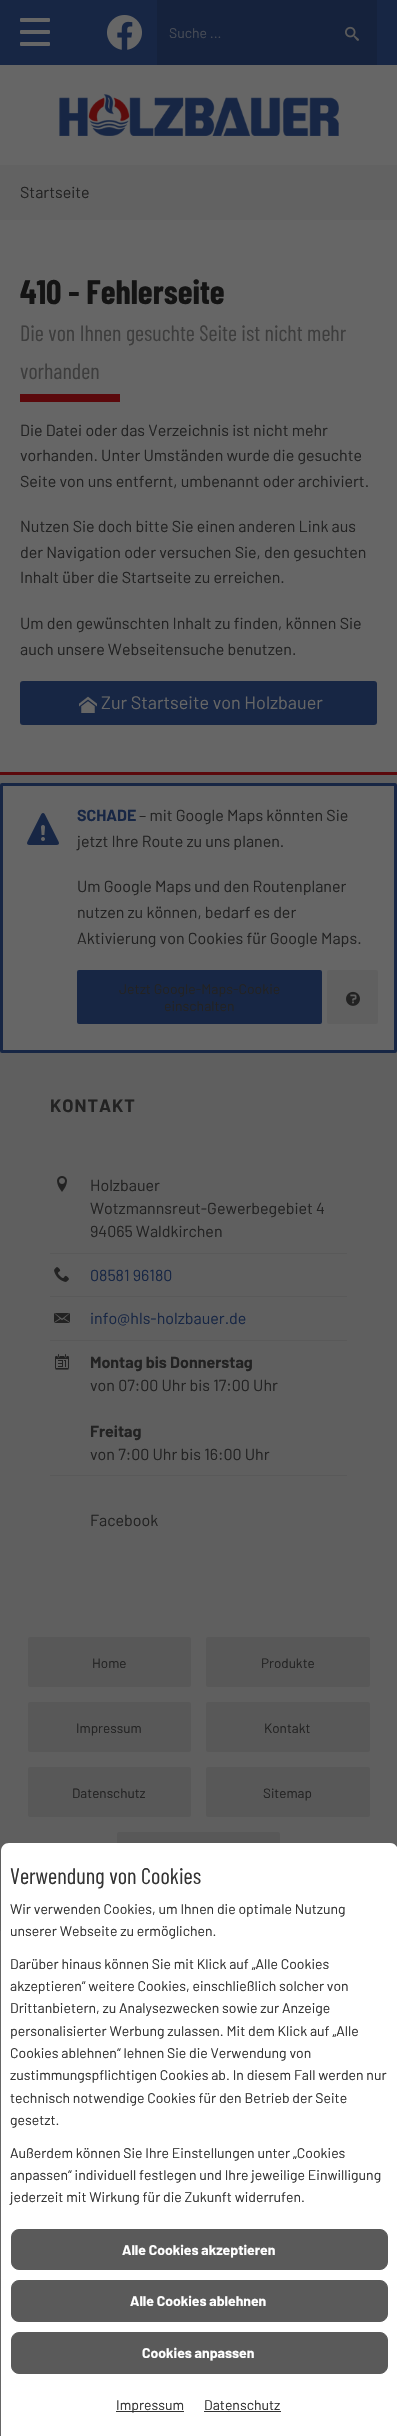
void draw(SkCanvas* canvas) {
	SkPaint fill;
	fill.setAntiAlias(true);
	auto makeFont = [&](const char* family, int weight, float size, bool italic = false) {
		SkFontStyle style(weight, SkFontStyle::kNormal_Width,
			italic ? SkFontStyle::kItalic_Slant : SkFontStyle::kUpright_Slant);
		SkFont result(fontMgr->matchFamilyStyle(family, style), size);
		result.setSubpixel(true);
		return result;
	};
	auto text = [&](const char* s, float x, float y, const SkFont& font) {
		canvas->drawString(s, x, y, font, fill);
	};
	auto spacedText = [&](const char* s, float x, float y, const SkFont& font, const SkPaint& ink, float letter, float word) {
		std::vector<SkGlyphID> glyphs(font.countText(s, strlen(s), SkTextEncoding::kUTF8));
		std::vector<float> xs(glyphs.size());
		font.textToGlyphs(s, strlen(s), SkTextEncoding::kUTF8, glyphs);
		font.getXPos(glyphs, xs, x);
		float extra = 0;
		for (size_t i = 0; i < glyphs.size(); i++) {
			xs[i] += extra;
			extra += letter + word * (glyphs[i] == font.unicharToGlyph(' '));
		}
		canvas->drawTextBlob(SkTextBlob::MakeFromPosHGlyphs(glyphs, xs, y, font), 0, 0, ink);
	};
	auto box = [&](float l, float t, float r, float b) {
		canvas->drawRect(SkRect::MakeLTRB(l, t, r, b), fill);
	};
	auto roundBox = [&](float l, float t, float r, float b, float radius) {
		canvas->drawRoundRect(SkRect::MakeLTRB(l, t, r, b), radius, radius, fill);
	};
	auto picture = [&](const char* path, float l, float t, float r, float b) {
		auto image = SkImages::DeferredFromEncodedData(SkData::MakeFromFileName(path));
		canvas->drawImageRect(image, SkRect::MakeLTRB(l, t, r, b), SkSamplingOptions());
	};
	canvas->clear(0xFF666666);
	fill.setColor(0xFF172644);
	box(0, 0, 397, 65);
	fill.setColor(0xFF666666);
	roundBox(20, 18, 50, 22, 1);
	roundBox(20, 30, 50, 34, 1);
	roundBox(20, 42, 50, 46, 1);
	picture("image0.png", 107, 15, 142, 50);
	fill.setColor(0xFF15223C);
	box(157, 0, 377, 65);
	picture("image1.png", 345, 26, 359, 41);
	picture("image2.png", 59, 94, 339, 136);
	fill.setColor(0xFF626262);
	box(0, 165, 397, 220);
	fill.setColor(0xFF5B090C);
	box(20, 394, 120, 402);
	fill.setColor(0xFF172644);
	roundBox(20, 681, 377, 725, 3);
	picture("image3.png", 79, 696, 97, 713);
	fill.setColor(0xFF5F5F5F);
	box(0, 775, 397, 1931);
	fill.setColor(0xFF5B090C);
	box(0, 772, 397, 775);
	fill.setColor(0xFF666666);
	canvas->drawRoundRect(SkRect::MakeLTRB(1.5f, 784.5f, 395.5f, 1051.5f), 0.5f, 0.5f, fill);
	fill.setStyle(SkPaint::kStroke_Style);
	fill.setStrokeWidth(3);
	fill.setColor(0xFF172644);
	canvas->drawRoundRect(SkRect::MakeLTRB(1.5f, 784.5f, 395.5f, 1051.5f), 0.5f, 0.5f, fill);
	picture("image4.png", 27, 813, 59, 845);
	fill.setStyle(SkPaint::kFill_Style);
	roundBox(77, 970, 322, 1024, 2);
	fill.setColor(0xFF606060);
	roundBox(327, 970, 378, 1024, 2);
	picture("image5.png", 346, 991, 360, 1006);
	fill.setColor(0xFF595959);
	box(50, 1253, 347, 1254);
	picture("image6.png", 57, 1176, 67, 1192);
	box(50, 1296, 347, 1297);
	picture("image7.png", 54, 1267, 69, 1282);
	box(50, 1340, 347, 1341);
	picture("image8.png", 54, 1313, 70, 1323);
	box(50, 1475, 347, 1476);
	picture("image9.png", 55, 1354, 69, 1370);
	fill.setColor(0xFF585858);
	roundBox(28, 1637, 191, 1687, 2);
	roundBox(206, 1637, 370, 1687, 2);
	roundBox(28, 1702, 191, 1752, 2);
	roundBox(206, 1702, 370, 1752, 2);
	roundBox(28, 1767, 191, 1817, 2);
	roundBox(206, 1767, 370, 1817, 2);
	roundBox(117, 1832, 280, 1882, 2);
	fill.setColor(0xFFFFFFFF);
	canvas->drawPath(SkPathBuilder().moveTo(9, 1843).lineTo(390, 1843).cubicTo(394.5f, 1843, 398, 1846.5f, 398, 1851).lineTo(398, 2436).lineTo(1, 2436).lineTo(1, 1851).cubicTo(1, 1846.5f, 4.5f, 1843, 9, 1843).close().detach(), fill);
	fill.setColor(0xFF5A5A5A);
	canvas->drawRoundRect(SkRect::MakeLTRB(11.5f, 2229.5f, 387.5f, 2269.5f), 7.5f, 7.5f, fill);
	fill.setStyle(SkPaint::kStroke_Style);
	fill.setStrokeWidth(1);
	canvas->drawRoundRect(SkRect::MakeLTRB(11.5f, 2229.5f, 387.5f, 2269.5f), 7.5f, 7.5f, fill);
	fill.setStyle(SkPaint::kFill_Style);
	canvas->drawRoundRect(SkRect::MakeLTRB(11.5f, 2280.5f, 387.5f, 2321.5f), 7.5f, 7.5f, fill);
	fill.setStyle(SkPaint::kStroke_Style);
	canvas->drawRoundRect(SkRect::MakeLTRB(11.5f, 2280.5f, 387.5f, 2321.5f), 7.5f, 7.5f, fill);
	fill.setStyle(SkPaint::kFill_Style);
	canvas->drawRoundRect(SkRect::MakeLTRB(11.5f, 2332.5f, 387.5f, 2373.5f), 7.5f, 7.5f, fill);
	fill.setStyle(SkPaint::kStroke_Style);
	canvas->drawRoundRect(SkRect::MakeLTRB(11.5f, 2332.5f, 387.5f, 2373.5f), 7.5f, 7.5f, fill);
	fill.setStyle(SkPaint::kFill_Style);
	fill.setColor(0xFF333333);
	box(116, 2411, 184, 2412);
	box(204, 2411, 281, 2412);
	auto font1 = makeFont("Barlow", 400, 14);
	fill.setColor(0xFF464B55);
	text("Suche ...", 169, 38, font1);
	auto font2 = makeFont("Barlow", 400, 16);
	fill.setColor(0xFF222222);
	text("Startseite", 20, 198, font2);
	auto font3 = makeFont("Barlow Condensed", 700, 34);
	fill.setColor(0xFF141414);
	text("410 - Fehlerseite", 20, 304, font3);
	auto font4 = makeFont("Barlow Condensed", 400, 22.1f);
	fill.setColor(0xFF3D3D3D);
	text("Die von Ihnen gesuchte Seite ist nicht mehr", 20, 341, font4);
	text("vorhanden", 20, 379, font4);
	fill.setColor(0xFF222222);
	text("Die Datei oder das Verzeichnis ist nicht mehr", 20, 436, font2);
	text("vorhanden. Unter Umständen wurde die gesuchte", 20, 461, font2);
	text("Seite von uns entfernt, umbenannt oder archiviert.", 20, 487, font2);
	text("Nutzen Sie doch bitte Sie einen anderen Link aus", 20, 532, font2);
	text("der Navigation oder versuchen Sie, den gesuchten", 20, 558, font2);
	text("Inhalt über die Startseite zu erreichen.", 20, 583, font2);
	text("Um den gewünschten Inhalt zu finden, können Sie", 20, 629, font2);
	text("auch unsere Webseitensuche benutzen.", 20, 655, font2);
	auto font5 = makeFont("Barlow", 400, 18);
	fill.setColor(0xFF666666);
	text("Zur Startseite von Holzbauer", 101, 709, font5);
	auto font6 = makeFont("Barlow", 700, 16);
	fill.setColor(0xFF172644);
	text("SCHADE", 77, 821, font6);
	fill.setColor(0xFF222222);
	text("– mit Google Maps könnten Sie", 139, 821, font2);
	text("jetzt Ihre Route zu uns planen.", 77, 847, font2);
	text("Um Google Maps und den Routenplaner", 77, 892, font2);
	text("nutzen zu können, bedarf es der", 77, 918, font2);
	text("Aktivierung von Cookies für Google Maps.", 77, 944, font2);
	text("Jetzt Google-Maps-Cookie", 119, 994, font1);
	text("einschalten", 164, 1011, font1);
	auto font7 = makeFont("Barlow", 700, 18);
	spacedText("KONTAKT", 50, 1112, font7, fill, 1, 0);
	text("Holzbauer", 90, 1191, font2);
	text("Wotzmannsreut-Gewerbegebiet 4", 90, 1214, font2);
	text("94065 Waldkirchen", 90, 1237, font2);
	fill.setColor(0xFF172644);
	text("08581 96180", 90, 1281, font2);
	text("info@hls-holzbauer.de", 90, 1324, font2);
	fill.setColor(0xFF222222);
	text("Montag bis Donnerstag", 90, 1368, font6);
	text("von 07:00 Uhr bis 17:00 Uhr", 90, 1391, font2);
	text("Freitag", 90, 1437, font6);
	text("von 7:00 Uhr bis 16:00 Uhr", 90, 1460, font2);
	text("Facebook", 90, 1526, font2);
	auto font8 = makeFont("Barlow", 400, 13.5f);
	text("Home", 92, 1668, font8);
	text("Produkte", 261, 1668, font8);
	text("Impressum", 76, 1733, font8);
	text("Kontakt", 264, 1733, font8);
	text("Datenschutz", 72, 1798, font8);
	text("Sitemap", 263, 1798, font8);
	auto font9 = makeFont("Barlow Condensed", 400, 22.5f);
	fill.setColor(0xFF333333);
	text("Verwendung von Cookies", 10, 1884, font9);
	text("Wir verwenden Cookies, um Ihnen die optimale Nutzung", 10, 1914, font1);
	text("unserer Webseite zu ermöglichen.", 10, 1936, font1);
	text("Darüber hinaus können Sie mit Klick auf „Alle Cookies", 10, 1969, font1);
	text("akzeptieren“ weitere Cookies, einschließlich solcher von", 10, 1991, font1);
	text("Drittanbietern, zu Analysezwecken sowie zur Anzeige", 10, 2013, font1);
	text("personalisierter Werbung zulassen. Mit dem Klick auf „Alle", 10, 2036, font1);
	text("Cookies ablehnen“ lehnen Sie die Verwendung von", 10, 2058, font1);
	text("zustimmungspflichtigen Cookies ab. In diesem Fall werden nur", 10, 2080, font1);
	text("technisch notwendige Cookies für den Betrieb der Seite", 10, 2103, font1);
	text("gesetzt.", 10, 2125, font1);
	text("Außerdem können Sie Ihre Einstellungen unter „Cookies", 10, 2158, font1);
	text("anpassen“ individuell festlegen und Ihre jeweilige Einwilligung", 10, 2180, font1);
	text("jederzeit mit Wirkung für die Zukunft widerrufen.", 10, 2202, font1);
	auto font10 = makeFont("Barlow", 700, 14);
	fill.setColor(0xFFFFFFFF);
	text("Alle Cookies akzeptieren", 122, 2255, font10);
	text("Alle Cookies ablehnen", 130, 2306, font10);
	text("Cookies anpassen", 142, 2358, font10);
	fill.setColor(0xFF333333);
	text("Impressum", 116, 2410, font1);
	text("Datenschutz", 204, 2410, font1);
}
